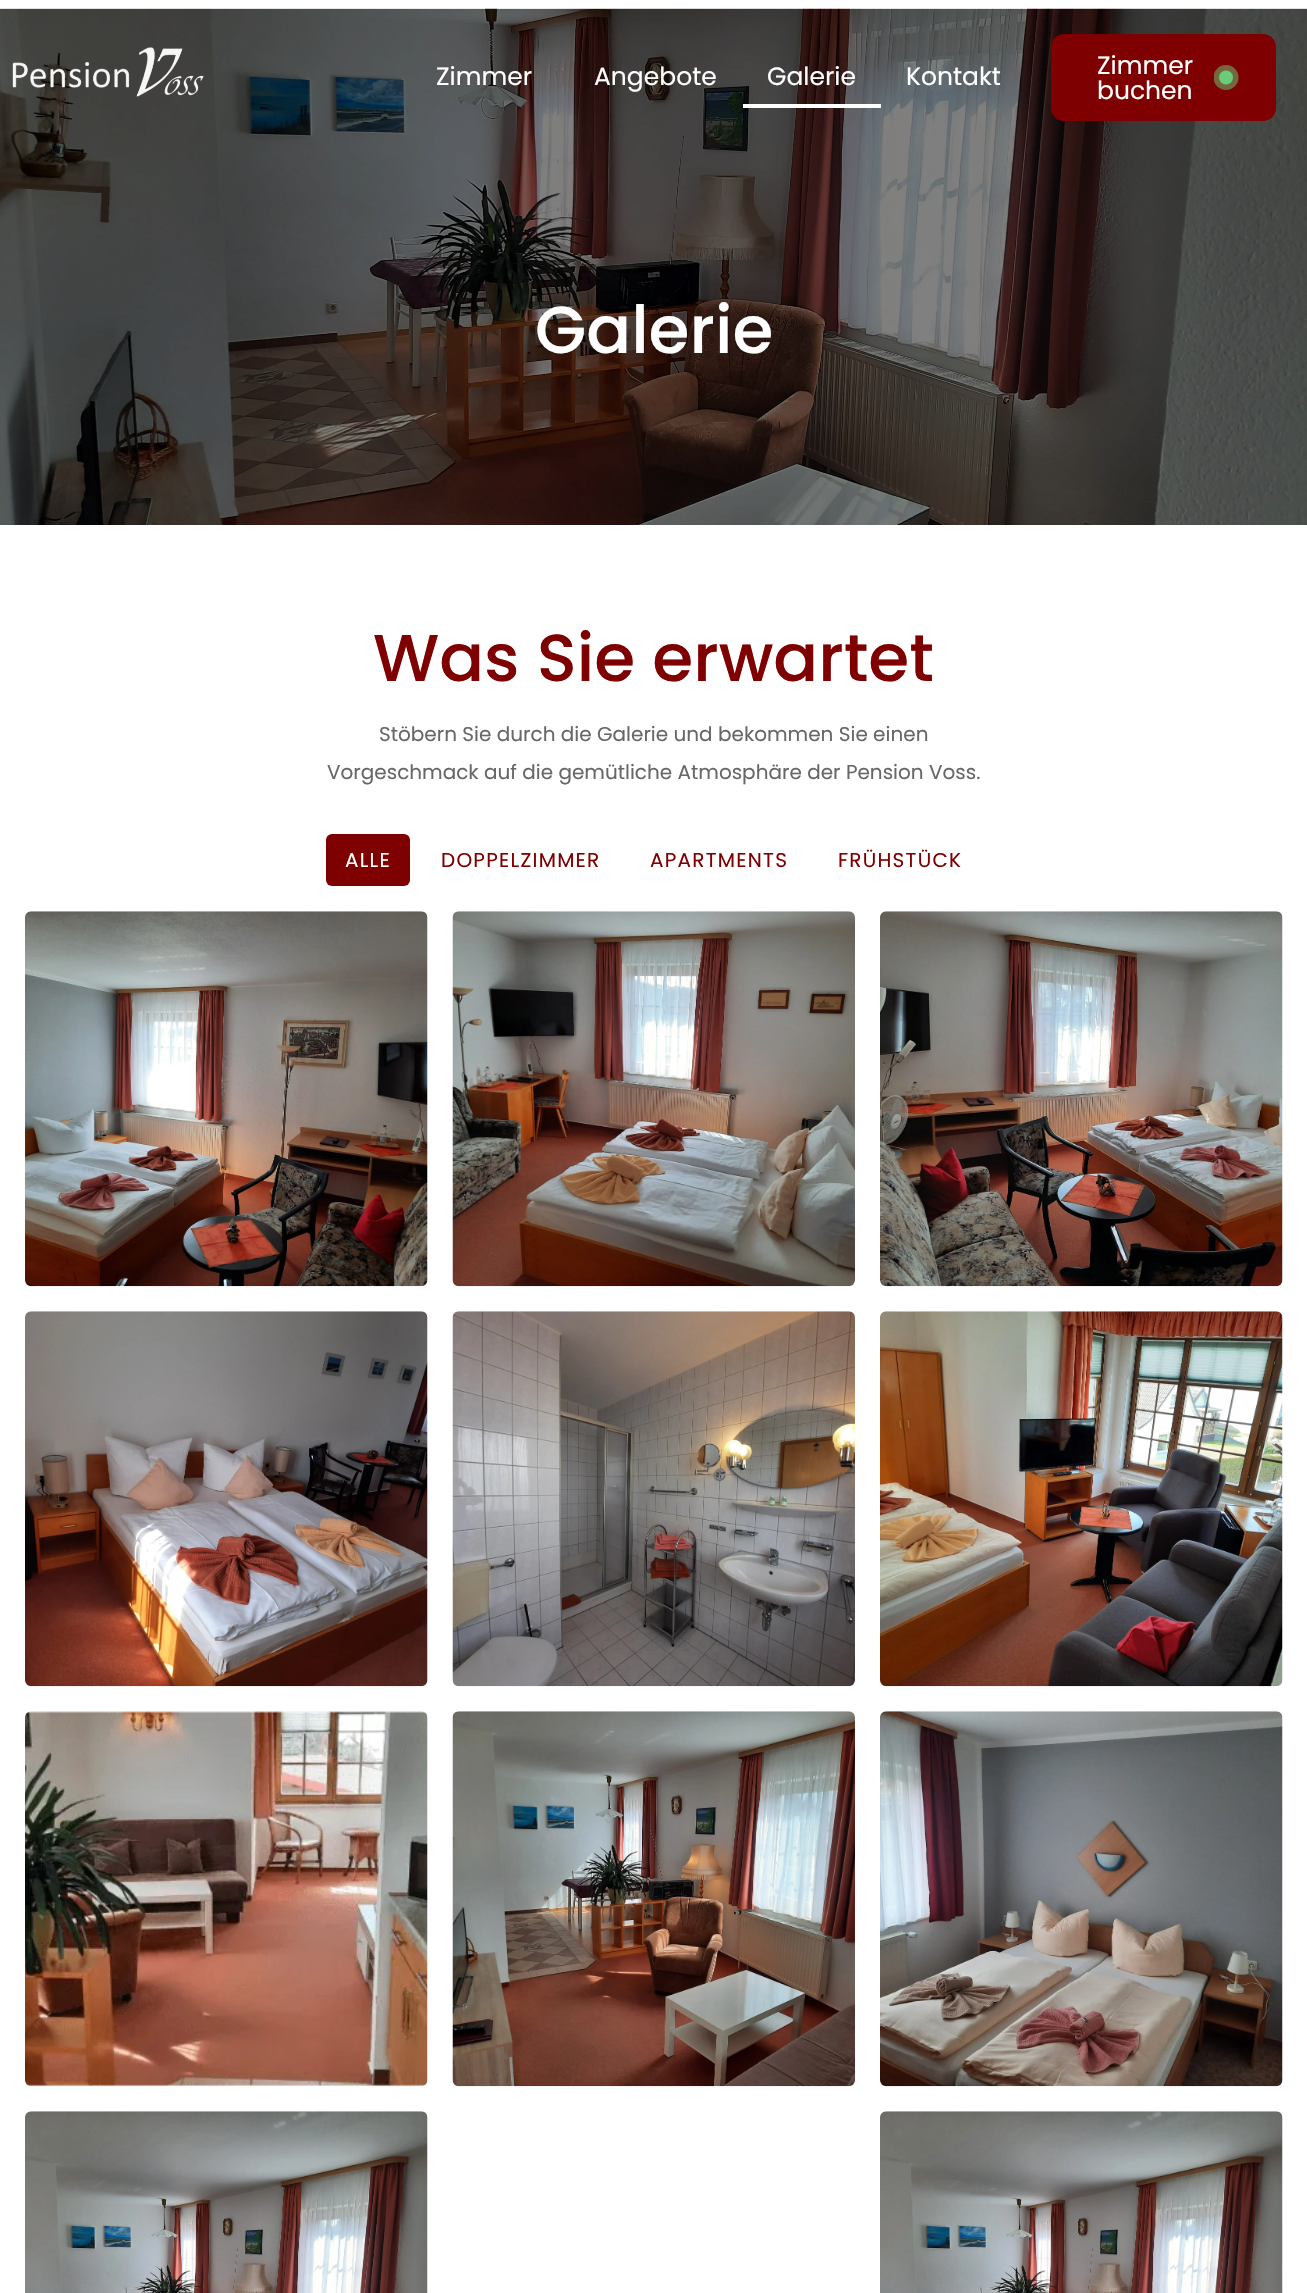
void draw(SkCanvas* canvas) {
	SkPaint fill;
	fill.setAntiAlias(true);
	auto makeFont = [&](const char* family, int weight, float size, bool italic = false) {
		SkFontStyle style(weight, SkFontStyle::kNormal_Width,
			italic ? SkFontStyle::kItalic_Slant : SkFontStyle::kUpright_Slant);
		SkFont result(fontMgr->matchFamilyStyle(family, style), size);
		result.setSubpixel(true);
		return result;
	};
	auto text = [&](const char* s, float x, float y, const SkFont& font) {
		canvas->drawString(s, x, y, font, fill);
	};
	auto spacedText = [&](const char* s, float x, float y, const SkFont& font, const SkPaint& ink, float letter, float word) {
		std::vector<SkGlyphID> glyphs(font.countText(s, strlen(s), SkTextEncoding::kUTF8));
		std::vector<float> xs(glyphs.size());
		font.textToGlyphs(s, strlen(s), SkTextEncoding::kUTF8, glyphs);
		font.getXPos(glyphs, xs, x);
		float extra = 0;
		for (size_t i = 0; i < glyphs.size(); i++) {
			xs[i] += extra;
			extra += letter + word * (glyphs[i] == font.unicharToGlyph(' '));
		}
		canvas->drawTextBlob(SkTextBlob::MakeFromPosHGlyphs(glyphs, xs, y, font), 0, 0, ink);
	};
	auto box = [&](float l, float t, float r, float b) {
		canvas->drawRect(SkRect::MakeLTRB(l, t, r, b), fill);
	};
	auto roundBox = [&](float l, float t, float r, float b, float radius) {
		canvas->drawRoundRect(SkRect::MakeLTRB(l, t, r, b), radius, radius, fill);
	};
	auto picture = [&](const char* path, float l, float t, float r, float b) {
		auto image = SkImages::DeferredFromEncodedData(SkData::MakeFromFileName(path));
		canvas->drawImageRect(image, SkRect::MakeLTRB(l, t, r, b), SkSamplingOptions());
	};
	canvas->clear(0xFFFFFFFF);
	picture("image1.png", 0, 8, 1307, 525);
	picture("image0.png", 12, 47, 204, 97);
	fill.setColor(0xFFFFFFFF);
	box(743, 104, 881, 108);
	fill.setColor(0xFF7F0000);
	roundBox(1051, 34, 1276, 121, 13);
	canvas->save();
	canvas->clipRect(SkRect::MakeLTRB(1214, 65, 1239, 90));
	fill.setColor(0xFF793D25);
	canvas->drawCircle(1226, 77.5f, 12.5f, fill);
	fill.setColor(0x4D6ACB7A);
	canvas->drawCircle(1226, 77.5f, 12.5f, fill);
	canvas->restore();
	fill.setColor(0xFF6ACB7A);
	canvas->drawCircle(1226, 77.5f, 7, fill);
	fill.setColor(0xFF7F0000);
	roundBox(326, 834, 410, 886, 6);
	picture("image2.png", 25, 911, 428, 1287);
	picture("image3.png", 452, 911, 855, 1287);
	picture("image4.png", 880, 911, 1283, 1287);
	picture("image5.png", 25, 1311, 428, 1687);
	picture("image6.png", 452, 1311, 855, 1687);
	picture("image7.png", 880, 1311, 1283, 1687);
	picture("image8.png", 25, 1711, 428, 2087);
	picture("image9.png", 452, 1711, 855, 2087);
	picture("image10.png", 880, 1711, 1283, 2087);
	picture("image11.png", 25, 2111, 428, 2293);
	picture("image12.png", 880, 2111, 1283, 2293);
	auto font1 = makeFont("Poppins", 400, 25);
	fill.setColor(0xFFFFFFFF);
	text("Zimmer", 436, 85, font1);
	text("Angebote", 594, 85, font1);
	text("Galerie", 767, 85, font1);
	text("Kontakt", 906, 85, font1);
	text("Zimmer", 1097, 74, font1);
	text("buchen", 1097, 99, font1);
	auto font2 = makeFont("Poppins", 500, 66.25f);
	text("Galerie", 535, 353, font2);
	fill.setColor(0xFF7F0000);
	text("Was Sie erwartet", 373, 681, font2);
	auto font3 = makeFont("Poppins", 400, 20);
	fill.setColor(0xFF676767);
	text("Stöbern Sie durch die Galerie und bekommen Sie einen", 379, 741, font3);
	text("Vorgeschmack auf die gemütliche Atmosphäre der Pension Voss.", 327, 779, font3);
	fill.setColor(0xFFFFFFFF);
	spacedText("ALLE", 345, 867, font3, fill, 1.25f, 0);
	fill.setColor(0xFF7F0000);
	spacedText("DOPPELZIMMER", 441, 867, font3, fill, 1.25f, 0);
	spacedText("APARTMENTS", 650, 867, font3, fill, 1.25f, 0);
	spacedText("FRÜHSTÜCK", 838, 867, font3, fill, 1.25f, 0);
}
